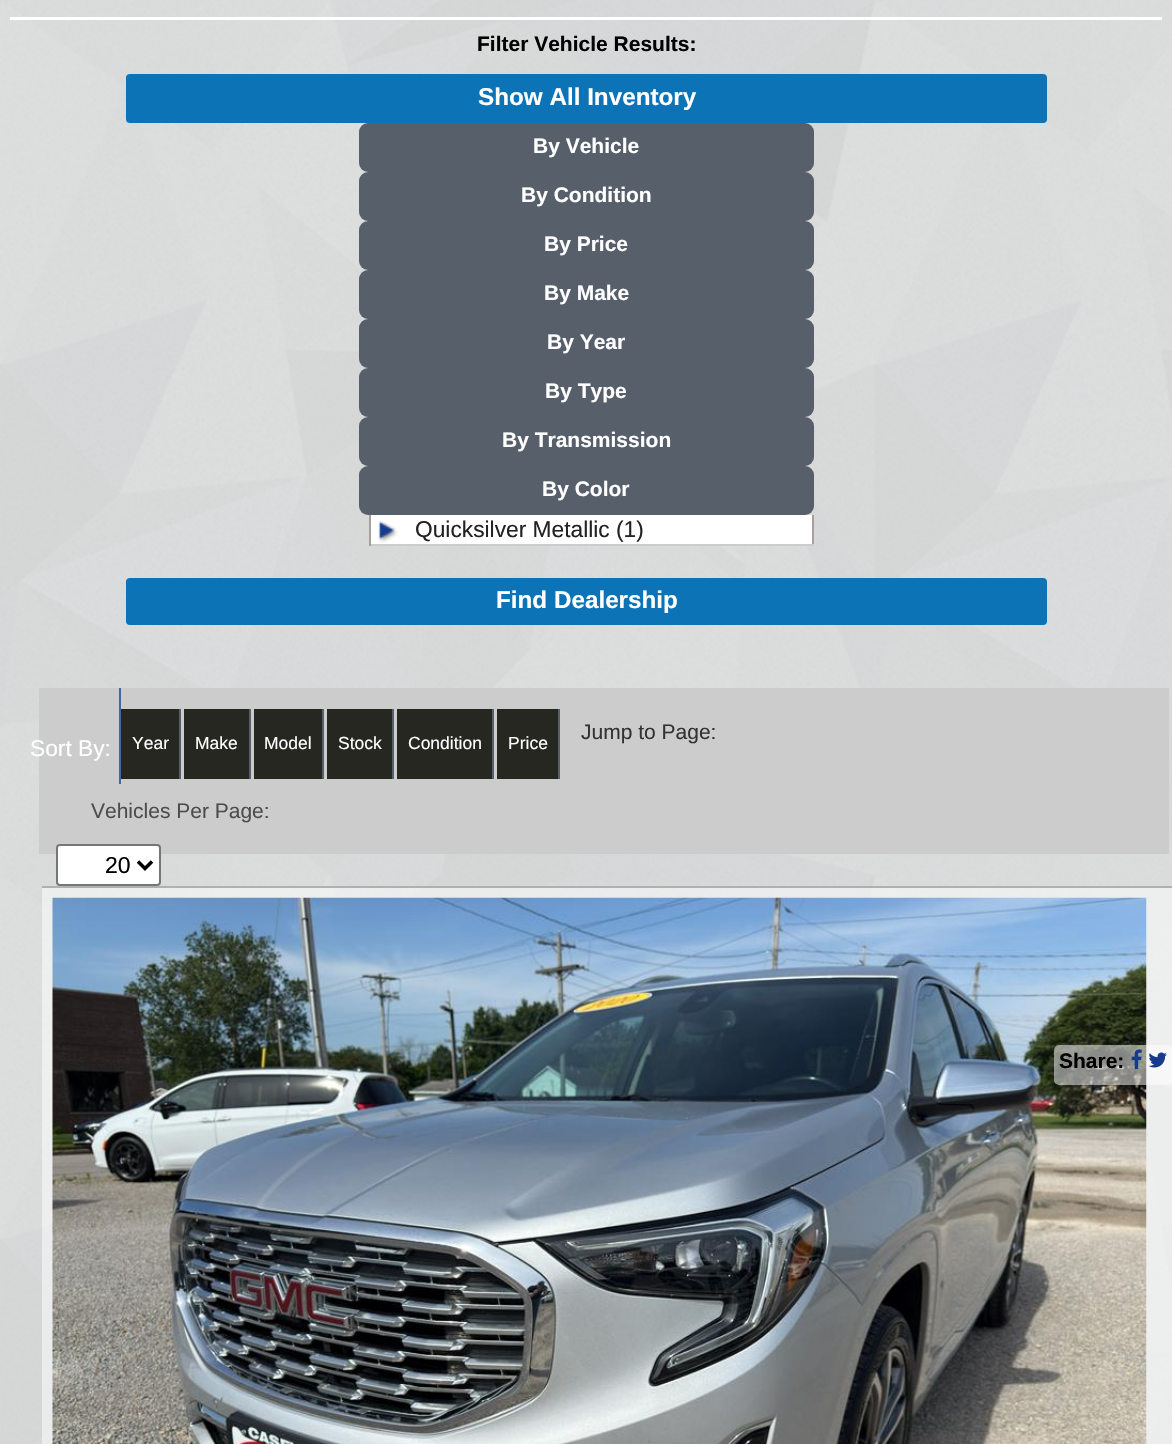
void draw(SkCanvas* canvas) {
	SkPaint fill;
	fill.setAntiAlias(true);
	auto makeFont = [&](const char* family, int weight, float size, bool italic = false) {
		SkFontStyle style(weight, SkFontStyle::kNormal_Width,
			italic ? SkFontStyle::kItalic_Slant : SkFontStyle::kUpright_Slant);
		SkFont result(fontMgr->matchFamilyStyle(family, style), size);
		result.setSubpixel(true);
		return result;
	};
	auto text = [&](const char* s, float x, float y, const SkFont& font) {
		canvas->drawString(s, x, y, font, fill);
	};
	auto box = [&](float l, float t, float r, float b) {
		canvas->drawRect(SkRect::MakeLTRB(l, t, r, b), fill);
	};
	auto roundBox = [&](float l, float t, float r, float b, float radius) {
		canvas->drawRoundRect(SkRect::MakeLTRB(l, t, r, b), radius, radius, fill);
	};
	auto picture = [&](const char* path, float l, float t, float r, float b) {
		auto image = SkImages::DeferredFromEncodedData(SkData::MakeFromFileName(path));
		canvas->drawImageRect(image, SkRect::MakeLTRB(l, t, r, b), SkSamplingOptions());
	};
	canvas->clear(0xFFFFFFFF);
	picture("image0.png", 0, 0, 1172, 1444);
	fill.setColor(0xFFFFFFFF);
	box(10, 17, 1162, 20);
	fill.setColor(0xFF0C73B6);
	roundBox(126, 74, 1047, 123, 4);
	fill.setColor(0xFF575F6B);
	roundBox(359, 123, 814, 172, 9);
	roundBox(359, 172, 814, 221, 9);
	roundBox(359, 221, 814, 270, 9);
	roundBox(359, 270, 814, 319, 9);
	roundBox(359, 319, 814, 368, 9);
	roundBox(359, 368, 814, 417, 9);
	roundBox(359, 417, 814, 466, 9);
	roundBox(359, 466, 814, 515, 9);
	fill.setColor(0xFFFFFFFF);
	box(371, 515, 812, 544);
	picture("image1.png", 378, 521, 398, 543);
	fill.setColor(0xFFA99E9E);
	box(812, 515, 814, 546);
	fill.setColor(0xFFCCCCCC);
	box(369, 544, 814, 546);
	fill.setColor(0xFFA99E9E);
	box(369, 515, 371, 546);
	fill.setColor(0xFF0C73B6);
	roundBox(126, 578, 1047, 625, 4);
	fill.setColor(0xFFCCCCCC);
	box(39, 688, 1169, 854);
	fill.setColor(0xFFFFFFFF);
	canvas->drawRoundRect(SkRect::MakeLTRB(57, 845, 160, 885), 3, 3, fill);
	fill.setStyle(SkPaint::kStroke_Style);
	fill.setStrokeWidth(2);
	fill.setColor(0xFF767676);
	canvas->drawRoundRect(SkRect::MakeLTRB(57, 845, 160, 885), 3, 3, fill);
	fill.setStrokeWidth(3.5f);
	fill.setColor(0xFF000000);
	canvas->drawPath(SkPathBuilder().moveTo(138, 861.5f).lineTo(145, 868.5f).lineTo(152, 861.5f).detach(), fill);
	fill.setStyle(SkPaint::kFill_Style);
	fill.setColor(0xFF4765A5);
	box(119, 688, 121, 784);
	fill.setColor(0xFF262721);
	box(121, 709, 179, 779);
	fill.setColor(0xFF575F6B);
	box(179, 709, 181, 779);
	fill.setColor(0xFF262721);
	box(184, 709, 249, 779);
	fill.setColor(0xFF575F6B);
	box(249, 709, 251, 779);
	fill.setColor(0xFF262721);
	box(254, 709, 322, 779);
	fill.setColor(0xFF575F6B);
	box(322, 709, 324, 779);
	fill.setColor(0xFF262721);
	box(327, 709, 392, 779);
	fill.setColor(0xFF575F6B);
	box(392, 709, 394, 779);
	fill.setColor(0xFF262721);
	box(397, 709, 492, 779);
	fill.setColor(0xFF575F6B);
	box(492, 709, 494, 779);
	fill.setColor(0xFF262721);
	box(497, 709, 558, 779);
	fill.setColor(0xFF575F6B);
	box(558, 709, 560, 779);
	fill.setColor(0x80FFFFFF);
	box(42, 888, 1172, 1444);
	fill.setColor(0xFFB0B0B0);
	box(42, 886, 1172, 888);
	picture("image2.png", 52, 897, 1147, 1444);
	fill.setColor(0x80FFFFFF);
	roundBox(1054, 1045, 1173, 1085, 5);
	picture("image3.png", 1131, 1049, 1142, 1069);
	picture("image4.png", 1148, 1052, 1167, 1068);
	auto font1 = makeFont("Liberation Sans", 700, 21);
	fill.setColor(0xFF000000);
	text("Filter Vehicle Results:", 477, 51, font1);
	auto font2 = makeFont("Liberation Sans", 700, 24.25f);
	fill.setColor(0xFFFFFFFF);
	text("Show All Inventory", 478, 105, font2);
	text("By Vehicle", 533, 153, font1);
	text("By Condition", 521, 202, font1);
	text("By Price", 544, 251, font1);
	text("By Make", 544, 300, font1);
	text("By Year", 547, 349, font1);
	text("By Type", 545, 398, font1);
	text("By Transmission", 502, 447, font1);
	text("By Color", 542, 496, font1);
	auto font3 = makeFont("Liberation Sans", 400, 22.75f);
	fill.setColor(0xFF222222);
	text("Quicksilver Metallic (1)", 415, 537, font3);
	fill.setColor(0xFFFFFFFF);
	text("Find Dealership", 496, 608, font2);
	auto font4 = makeFont("Liberation Sans", 400, 21);
	fill.setColor(0xFF333333);
	text("Jump to Page:", 581, 739, font4);
	fill.setColor(0xFF4D4D4D);
	text("Vehicles Per Page:", 91, 818, font4);
	auto font5 = makeFont("Liberation Sans", 400, 23);
	fill.setColor(0xFF000000);
	text("20", 105, 873, font5);
	fill.setColor(0xFFFFFFFF);
	text("Sort By:", 30, 756, font3);
	auto font6 = makeFont("Liberation Sans", 400, 17.5f);
	text("Year", 132, 749, font6);
	text("Make", 195, 749, font6);
	text("Model", 264, 749, font6);
	text("Stock", 338, 749, font6);
	text("Condition", 408, 749, font6);
	text("Price", 508, 749, font6);
	fill.setColor(0xFF000000);
	text("Share:", 1059, 1068, font1);
}
